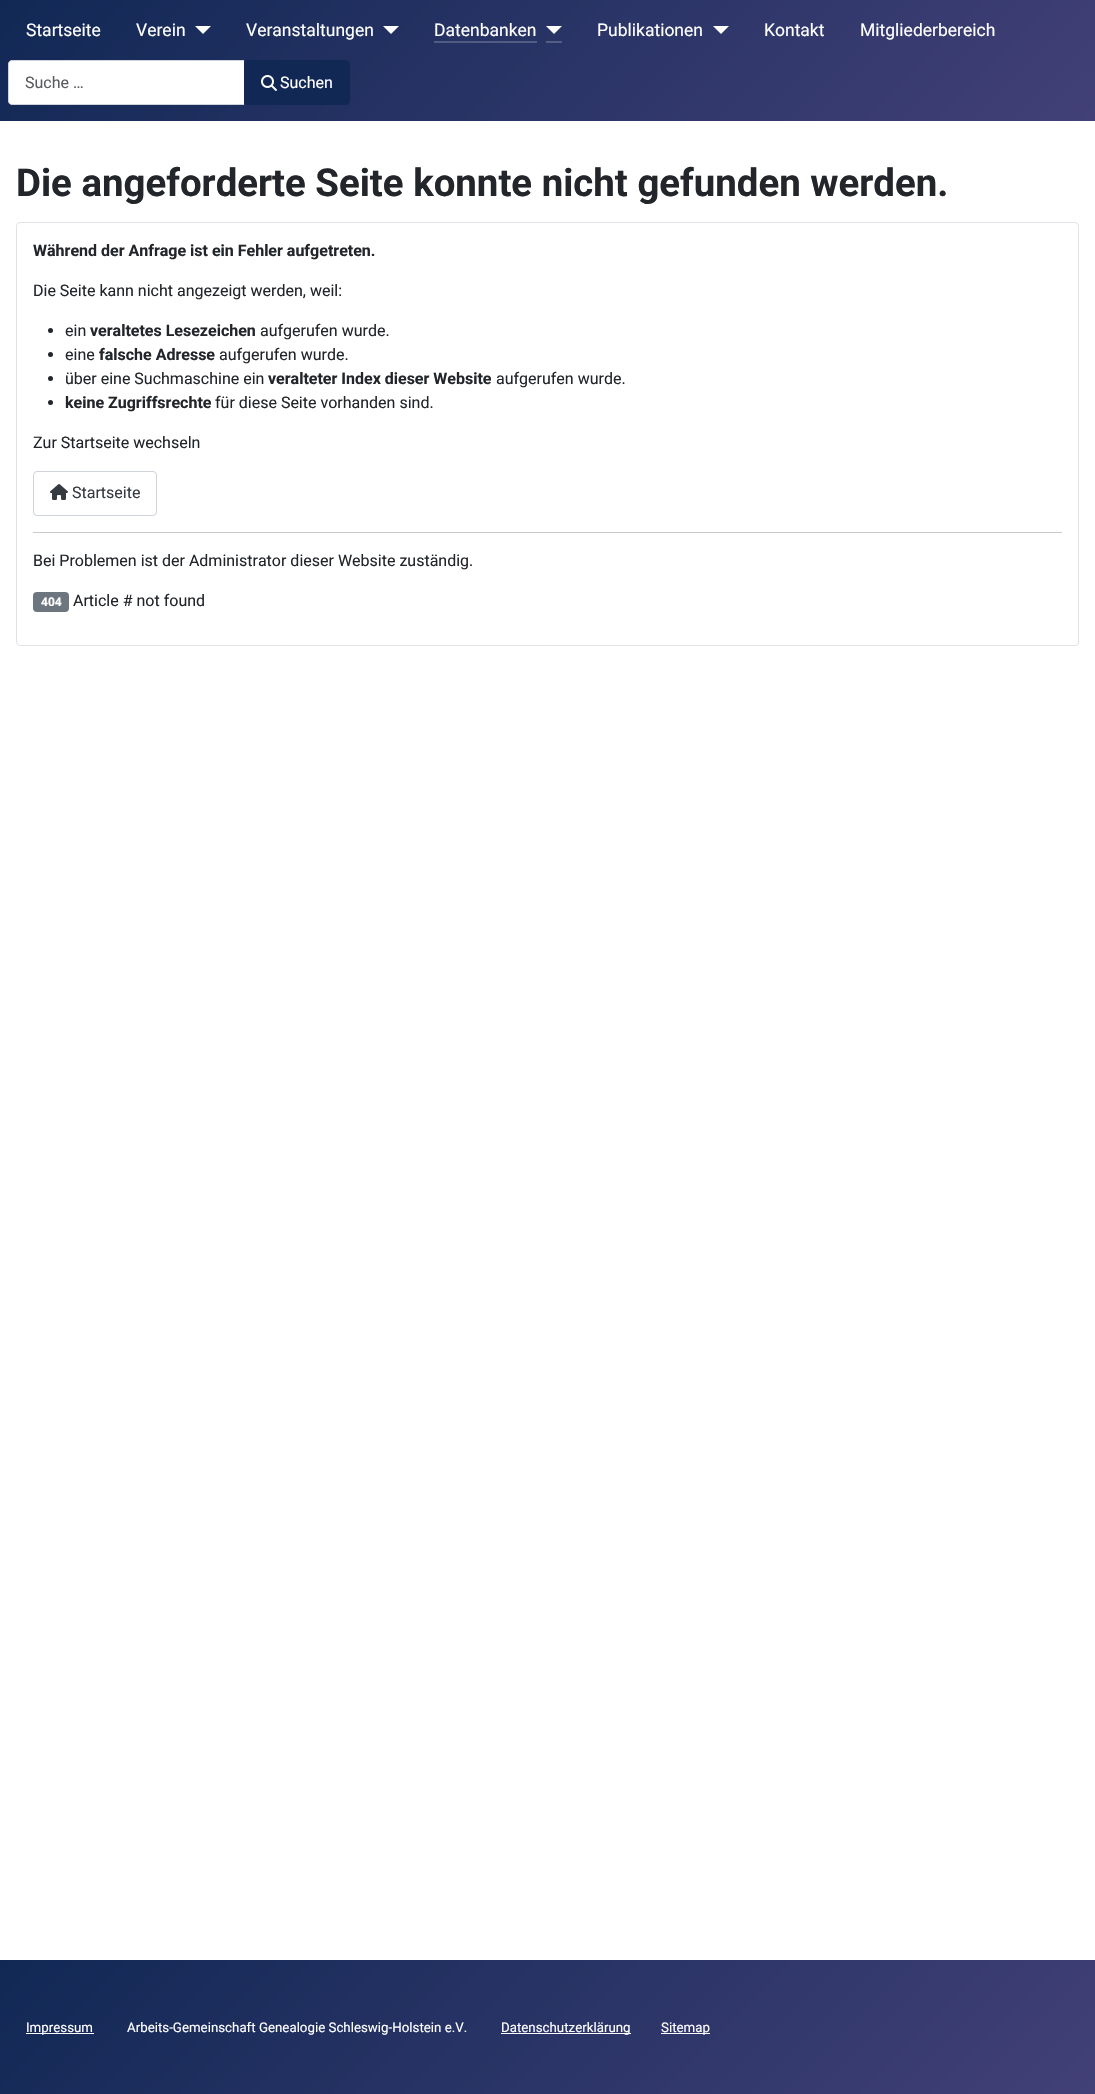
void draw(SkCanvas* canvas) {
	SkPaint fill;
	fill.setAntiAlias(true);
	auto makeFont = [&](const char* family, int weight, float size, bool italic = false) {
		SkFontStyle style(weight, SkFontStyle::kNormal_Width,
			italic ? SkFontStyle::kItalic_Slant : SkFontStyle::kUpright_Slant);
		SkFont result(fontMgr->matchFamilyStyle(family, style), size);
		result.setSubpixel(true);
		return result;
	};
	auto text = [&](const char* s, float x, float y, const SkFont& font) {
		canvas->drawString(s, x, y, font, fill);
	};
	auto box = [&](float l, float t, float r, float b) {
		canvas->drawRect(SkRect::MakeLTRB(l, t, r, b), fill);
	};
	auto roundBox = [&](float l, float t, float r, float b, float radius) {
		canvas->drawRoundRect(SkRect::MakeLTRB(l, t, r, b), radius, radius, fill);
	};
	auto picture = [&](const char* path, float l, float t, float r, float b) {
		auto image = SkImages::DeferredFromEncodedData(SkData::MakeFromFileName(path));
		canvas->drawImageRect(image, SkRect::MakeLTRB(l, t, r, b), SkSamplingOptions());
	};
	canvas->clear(0xFFFFFFFF);
	{
		const SkColor colors[] = {0xFF112855, 0xFF424077};
		const float stops[] = {0, 1};
		const SkPoint ends[] = {{244, -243}, {852, 365}};
		fill.setShader(SkGradientShader::MakeLinear(ends, colors, stops, 2, SkTileMode::kClamp));
		fill.setAlpha(255);
	}
	box(0, 0, 1095, 121);
	{
		const SkColor colors[] = {0xFF415377, 0xFF686692};
		const float stops[] = {0, 1};
		const SkPoint ends[] = {{244, -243}, {852, 365}};
		fill.setShader(SkGradientShader::MakeLinear(ends, colors, stops, 2, SkTileMode::kClamp));
		fill.setAlpha(255);
	}
	box(434, 41, 537, 43);
	fill.setShader(nullptr);
	fill.setColor(0xFFFFFFFF);
	canvas->drawPath(SkPathBuilder().moveTo(195, 26).lineTo(211, 26).lineTo(203, 34).close().detach(), fill);
	canvas->drawPath(SkPathBuilder().moveTo(383, 26).lineTo(399, 26).lineTo(391, 34).close().detach(), fill);
	canvas->drawPath(SkPathBuilder().moveTo(546, 26).lineTo(562, 26).lineTo(554, 34).close().detach(), fill);
	fill.setColor(0xFF545D84);
	box(546, 41, 562, 43);
	fill.setColor(0xFFFFFFFF);
	canvas->drawPath(SkPathBuilder().moveTo(713, 26).lineTo(729, 26).lineTo(721, 34).close().detach(), fill);
	canvas->drawPath(SkPathBuilder().moveTo(12, 60.5f).lineTo(244.5f, 60.5f).lineTo(244.5f, 104.5f).lineTo(12, 104.5f).cubicTo(10, 104.5f, 8.5f, 103, 8.5f, 101).lineTo(8.5f, 64).cubicTo(8.5f, 62, 10, 60.5f, 12, 60.5f).close().detach(), fill);
	fill.setStyle(SkPaint::kStroke_Style);
	fill.setStrokeWidth(1);
	fill.setColor(0xFFCED4DA);
	canvas->drawPath(SkPathBuilder().moveTo(12, 60.5f).lineTo(244.5f, 60.5f).lineTo(244.5f, 104.5f).lineTo(12, 104.5f).cubicTo(10, 104.5f, 8.5f, 103, 8.5f, 101).lineTo(8.5f, 64).cubicTo(8.5f, 62, 10, 60.5f, 12, 60.5f).close().detach(), fill);
	fill.setStyle(SkPaint::kFill_Style);
	fill.setColor(0xFF112855);
	canvas->drawPath(SkPathBuilder().moveTo(244.5f, 60.5f).lineTo(346, 60.5f).cubicTo(348, 60.5f, 349.5f, 62, 349.5f, 64).lineTo(349.5f, 101).cubicTo(349.5f, 103, 348, 104.5f, 346, 104.5f).lineTo(244.5f, 104.5f).close().detach(), fill);
	fill.setStyle(SkPaint::kStroke_Style);
	canvas->drawPath(SkPathBuilder().moveTo(244.5f, 60.5f).lineTo(346, 60.5f).cubicTo(348, 60.5f, 349.5f, 62, 349.5f, 64).lineTo(349.5f, 101).cubicTo(349.5f, 103, 348, 104.5f, 346, 104.5f).lineTo(244.5f, 104.5f).close().detach(), fill);
	picture("image0.png", 261, 75, 277, 91);
	fill.setColor(0xFFDFE3E7);
	canvas->drawRoundRect(SkRect::MakeLTRB(16.5f, 222.5f, 1078.5f, 645.5f), 3.5f, 3.5f, fill);
	fill.setStyle(SkPaint::kFill_Style);
	fill.setColor(0xFF22262A);
	canvas->drawCircle(50.5f, 330.5f, 2.5f, fill);
	canvas->drawCircle(50.5f, 354.5f, 2.5f, fill);
	canvas->drawCircle(50.5f, 378.5f, 2.5f, fill);
	canvas->drawCircle(50.5f, 402.5f, 2.5f, fill);
	fill.setStyle(SkPaint::kStroke_Style);
	fill.setColor(0xFFCED4DA);
	canvas->drawRoundRect(SkRect::MakeLTRB(33.5f, 471.5f, 156.5f, 515.5f), 3.5f, 3.5f, fill);
	picture("image1.png", 50, 484, 68, 500);
	fill.setStyle(SkPaint::kFill_Style);
	fill.setColor(0xFFC8C9CA);
	box(33, 532, 1062, 533);
	fill.setColor(0xFF6D757E);
	roundBox(33, 592, 69, 612, 4);
	{
		const SkColor colors[] = {0xFF112855, 0xFF424077};
		const float stops[] = {0, 1};
		const SkPoint ends[] = {{240, 1720}, {855, 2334}};
		fill.setShader(SkGradientShader::MakeLinear(ends, colors, stops, 2, SkTileMode::kClamp));
		fill.setAlpha(255);
	}
	box(0, 1960, 1095, 2094);
	fill.setShader(nullptr);
	fill.setColor(0xFFFFFFFF);
	box(26, 2033, 94, 2034);
	box(501, 2033, 631, 2034);
	box(661, 2033, 710, 2034);
	auto font1 = makeFont("Roboto", 400, 17.5f);
	text("Startseite", 26, 36, font1);
	text("Verein", 136, 36, font1);
	text("Veranstaltungen", 246, 36, font1);
	text("Datenbanken", 434, 36, font1);
	text("Publikationen", 597, 36, font1);
	text("Kontakt", 764, 36, font1);
	text("Mitgliederbereich", 860, 36, font1);
	auto font2 = makeFont("Roboto", 400, 16);
	fill.setColor(0xFF595C5F);
	text("Suche …", 25, 88, font2);
	fill.setColor(0xFFFFFFFF);
	text("Suchen", 280, 88, font2);
	auto font3 = makeFont("Roboto", 700, 38.4f);
	fill.setColor(0xFF22262A);
	text("Die angeforderte Seite konnte nicht gefunden werden.", 16, 196, font3);
	auto font4 = makeFont("Roboto", 700, 16);
	text("Während der Anfrage ist ein Fehler aufgetreten.", 33, 256, font4);
	text("Die Seite kann nicht angezeigt werden, weil:", 33, 296, font2);
	text("ein", 65, 336, font2);
	text("veraltetes Lesezeichen", 90, 336, font4);
	text("aufgerufen wurde.", 260, 336, font2);
	text("eine", 65, 360, font2);
	text("falsche Adresse", 99, 360, font4);
	text("aufgerufen wurde.", 219, 360, font2);
	text("über eine Suchmaschine ein", 65, 384, font2);
	text("veralteter Index dieser Website", 268, 384, font4);
	text("aufgerufen wurde.", 496, 384, font2);
	text("keine Zugriffsrechte", 65, 408, font4);
	text("für diese Seite vorhanden sind.", 215, 408, font2);
	text("Zur Startseite wechseln", 33, 448, font2);
	fill.setColor(0xFF353B41);
	text("Startseite", 72, 498, font2);
	fill.setColor(0xFF22262A);
	text("Bei Problemen ist der Administrator dieser Website zuständig.", 33, 566, font2);
	auto font5 = makeFont("Roboto", 700, 12);
	fill.setColor(0xFFFFFFFF);
	text("404", 41, 606, font5);
	fill.setColor(0xFF22262A);
	text("Article # not found", 73, 606, font2);
	auto font6 = makeFont("Roboto", 400, 13.3f);
	fill.setColor(0xFFFFFFFF);
	text("Impressum", 26, 2032, font6);
	text("Arbeits-Gemeinschaft Genealogie Schleswig-Holstein e.V.", 127, 2032, font6);
	text("Datenschutzerklärung", 501, 2032, font6);
	text("Sitemap", 661, 2032, font6);
}
